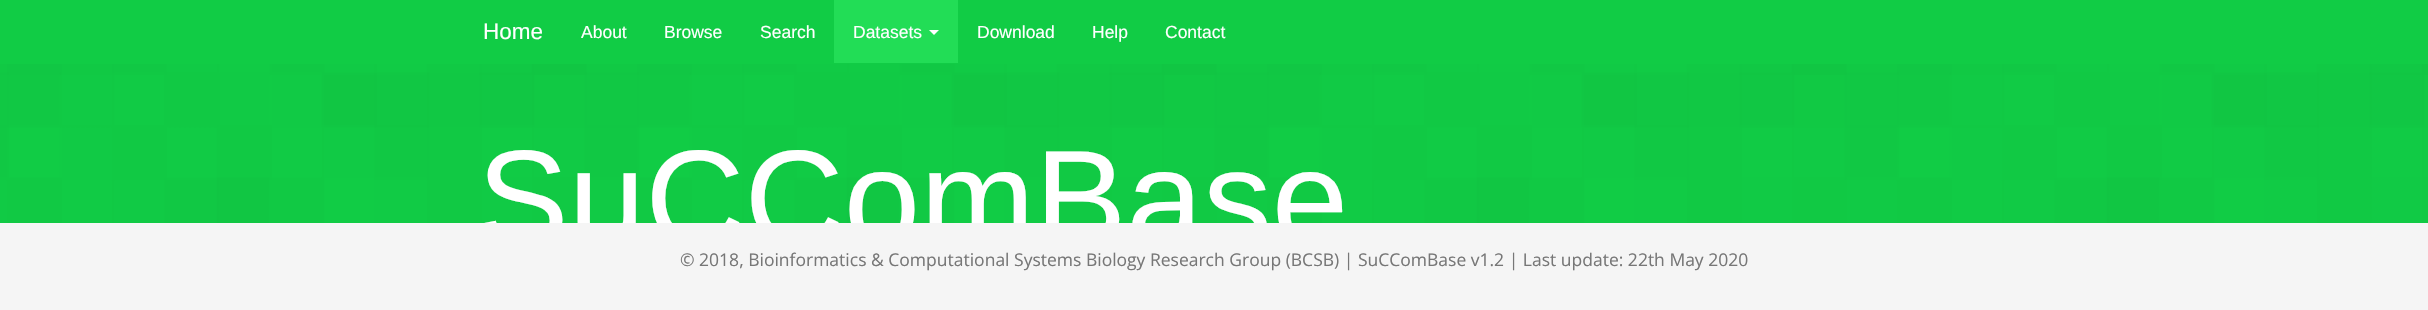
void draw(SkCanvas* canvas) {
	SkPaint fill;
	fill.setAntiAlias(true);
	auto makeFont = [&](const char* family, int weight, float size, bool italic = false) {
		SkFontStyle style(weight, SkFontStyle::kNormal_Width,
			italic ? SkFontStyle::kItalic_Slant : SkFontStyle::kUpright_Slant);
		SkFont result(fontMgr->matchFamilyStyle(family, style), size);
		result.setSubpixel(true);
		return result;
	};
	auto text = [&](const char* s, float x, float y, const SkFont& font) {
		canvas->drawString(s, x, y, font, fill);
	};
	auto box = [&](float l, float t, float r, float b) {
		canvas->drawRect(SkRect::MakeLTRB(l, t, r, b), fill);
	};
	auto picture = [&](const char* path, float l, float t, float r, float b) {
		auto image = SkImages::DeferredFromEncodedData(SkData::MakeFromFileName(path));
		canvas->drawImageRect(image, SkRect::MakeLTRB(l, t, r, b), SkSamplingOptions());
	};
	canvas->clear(0xFF11CC45);
	fill.setColor(0xFF22DD56);
	box(834, 0, 958, 63);
	fill.setColor(0xFFFFFFFF);
	canvas->drawPath(SkPathBuilder().moveTo(929, 30).lineTo(939, 30).lineTo(934, 35).close().detach(), fill);
	picture("image0.png", 0, 64, 2428, 223);
	auto font1 = makeFont("Liberation Sans", 400, 22.5f);
	text("Home", 483, 39, font1);
	auto font2 = makeFont("Liberation Sans", 400, 17.5f);
	text("About", 581, 38, font2);
	text("Browse", 664, 38, font2);
	text("Search", 760, 38, font2);
	text("Datasets", 853, 38, font2);
	text("Download", 977, 38, font2);
	text("Help", 1092, 38, font2);
	text("Contact", 1165, 38, font2);
	auto font3 = makeFont("Liberation Sans", 400, 137.5f);
	text("SuCComBase", 477, 246, font3);
	fill.setColor(0xFFF5F5F5);
	box(0, 223, 2428, 310);
	auto font4 = makeFont("Open Sans", 400, 17.5f);
	fill.setColor(0xFF777777);
	text("© 2018, Bioinformatics & Computational Systems Biology Research Group (BCSB) | SuCComBase v1.2 | Last update: 22th May 2020", 680, 266, font4);
}
